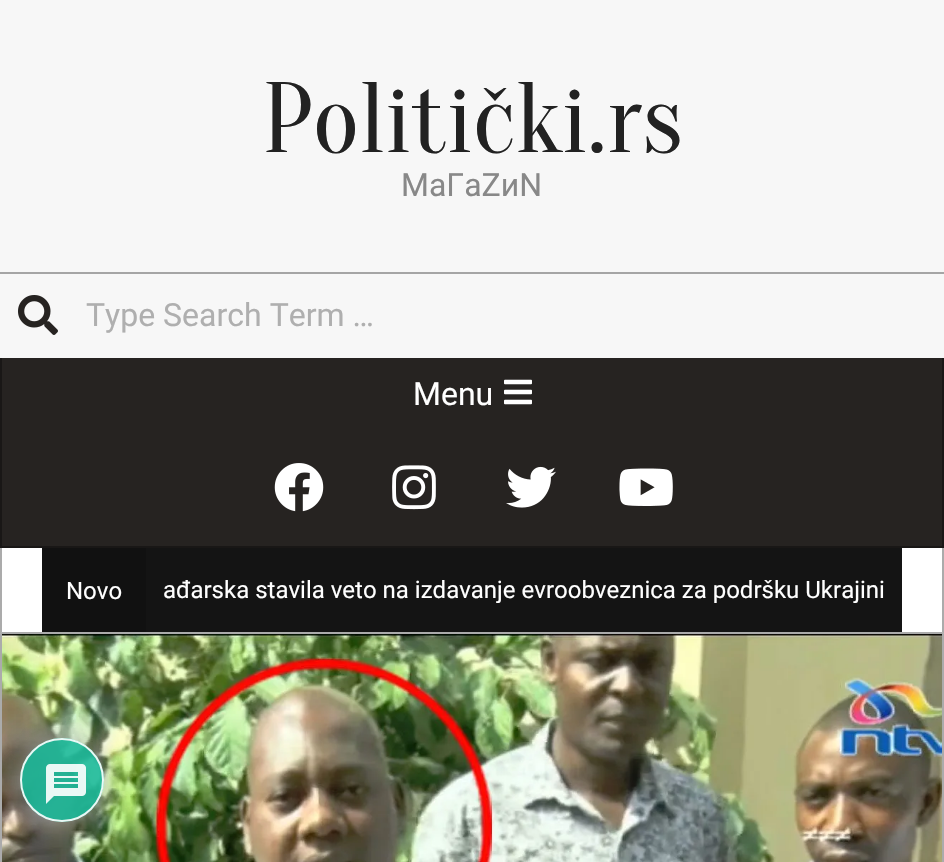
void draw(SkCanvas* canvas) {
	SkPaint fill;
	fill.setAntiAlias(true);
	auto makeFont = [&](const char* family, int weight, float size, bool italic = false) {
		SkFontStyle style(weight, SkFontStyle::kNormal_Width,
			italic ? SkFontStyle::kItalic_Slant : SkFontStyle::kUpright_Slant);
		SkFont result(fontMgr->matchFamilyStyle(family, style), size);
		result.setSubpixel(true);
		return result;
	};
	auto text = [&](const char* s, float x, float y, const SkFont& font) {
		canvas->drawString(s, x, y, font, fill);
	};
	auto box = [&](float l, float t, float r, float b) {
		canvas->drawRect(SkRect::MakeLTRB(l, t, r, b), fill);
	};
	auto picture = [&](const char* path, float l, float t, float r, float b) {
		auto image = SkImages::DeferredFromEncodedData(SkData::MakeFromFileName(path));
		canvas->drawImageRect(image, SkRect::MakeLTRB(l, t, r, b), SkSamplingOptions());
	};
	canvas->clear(0xFFF7F7F7);
	fill.setColor(0xFFA5A5A5);
	box(0, 272, 944, 274);
	picture("image0.png", 18, 295, 58, 335);
	fill.setColor(0xFF262321);
	box(2, 358, 942, 546);
	fill.setColor(0xFF191716);
	box(942, 358, 944, 548);
	box(0, 358, 2, 548);
	picture("image1.png", 504, 379, 532, 405);
	box(2, 546, 942, 548);
	picture("image2.png", 274, 463, 324, 512);
	picture("image3.png", 392, 465, 436, 510);
	picture("image4.png", 506, 466, 556, 508);
	picture("image5.png", 619, 468, 673, 506);
	fill.setColor(0xFFFFFFFF);
	box(0, 548, 944, 634);
	fill.setColor(0xFFABABAB);
	canvas->drawPath(SkPathBuilder().moveTo(944, 548).lineTo(944, 634).lineTo(942, 632).lineTo(942, 548).close().detach(), fill);
	fill.setColor(0x54000000);
	canvas->drawPath(SkPathBuilder().moveTo(944, 634).lineTo(0, 634).lineTo(2, 632).lineTo(942, 632).close().detach(), fill);
	canvas->drawPath(SkPathBuilder().moveTo(0, 634).lineTo(0, 548).lineTo(2, 548).lineTo(2, 632).close().detach(), fill);
	fill.setColor(0xFF141414);
	box(146, 548, 902, 632);
	fill.setColor(0xFF111111);
	box(42, 548, 146, 632);
	fill.setColor(0xFFABABAB);
	box(942, 634, 944, 862);
	box(0, 634, 2, 862);
	picture("image6.png", 2, 634, 942, 862);
	canvas->save();
	canvas->clipPath(SkPathBuilder(SkPathFillType::kEvenOdd).moveTo(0, 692).lineTo(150, 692).lineTo(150, 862).lineTo(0, 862).close().moveTo(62, 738).cubicTo(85, 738, 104, 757, 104, 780).cubicTo(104, 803, 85, 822, 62, 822).cubicTo(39, 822, 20, 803, 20, 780).cubicTo(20, 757, 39, 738, 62, 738).close().detach(), true);
	fill.setColor(0xE6AAAAAA);
	fill.setMaskFilter(SkMaskFilter::MakeBlur(kNormal_SkBlurStyle, 15));
	canvas->drawRoundRect(SkRect::MakeLTRB(20, 738, 104, 822), 42, 42, fill);
	fill.setMaskFilter(nullptr);
	canvas->restore();
	fill.setColor(0xE61DB99A);
	canvas->drawCircle(62, 780, 42, fill);
	fill.setStyle(SkPaint::kStroke_Style);
	fill.setStrokeWidth(2);
	fill.setColor(0xE6FFFFFF);
	canvas->drawCircle(62, 780, 41, fill);
	picture("image7.png", 46, 764, 86, 804);
	auto font1 = makeFont("Oranienbaum", 400, 100);
	fill.setStyle(SkPaint::kFill_Style);
	fill.setColor(0xFF222222);
	text("Politički.rs", 262, 152, font1);
	auto font2 = makeFont("Roboto", 400, 32);
	fill.setColor(0xFF888888);
	text("МаГaZиN", 401, 196, font2);
	fill.setColor(0xFFAFAFAF);
	text("Type Search Term …", 86, 326, font2);
	fill.setColor(0xFFFFFFFF);
	text("Menu", 413, 405, font2);
	auto font3 = makeFont("Roboto", 400, 24);
	text("Novo", 66, 599, font3);
	text("ađarska stavila veto na izdavanje evroobveznica za podršku Ukrajini", 163, 598, font3);
}
